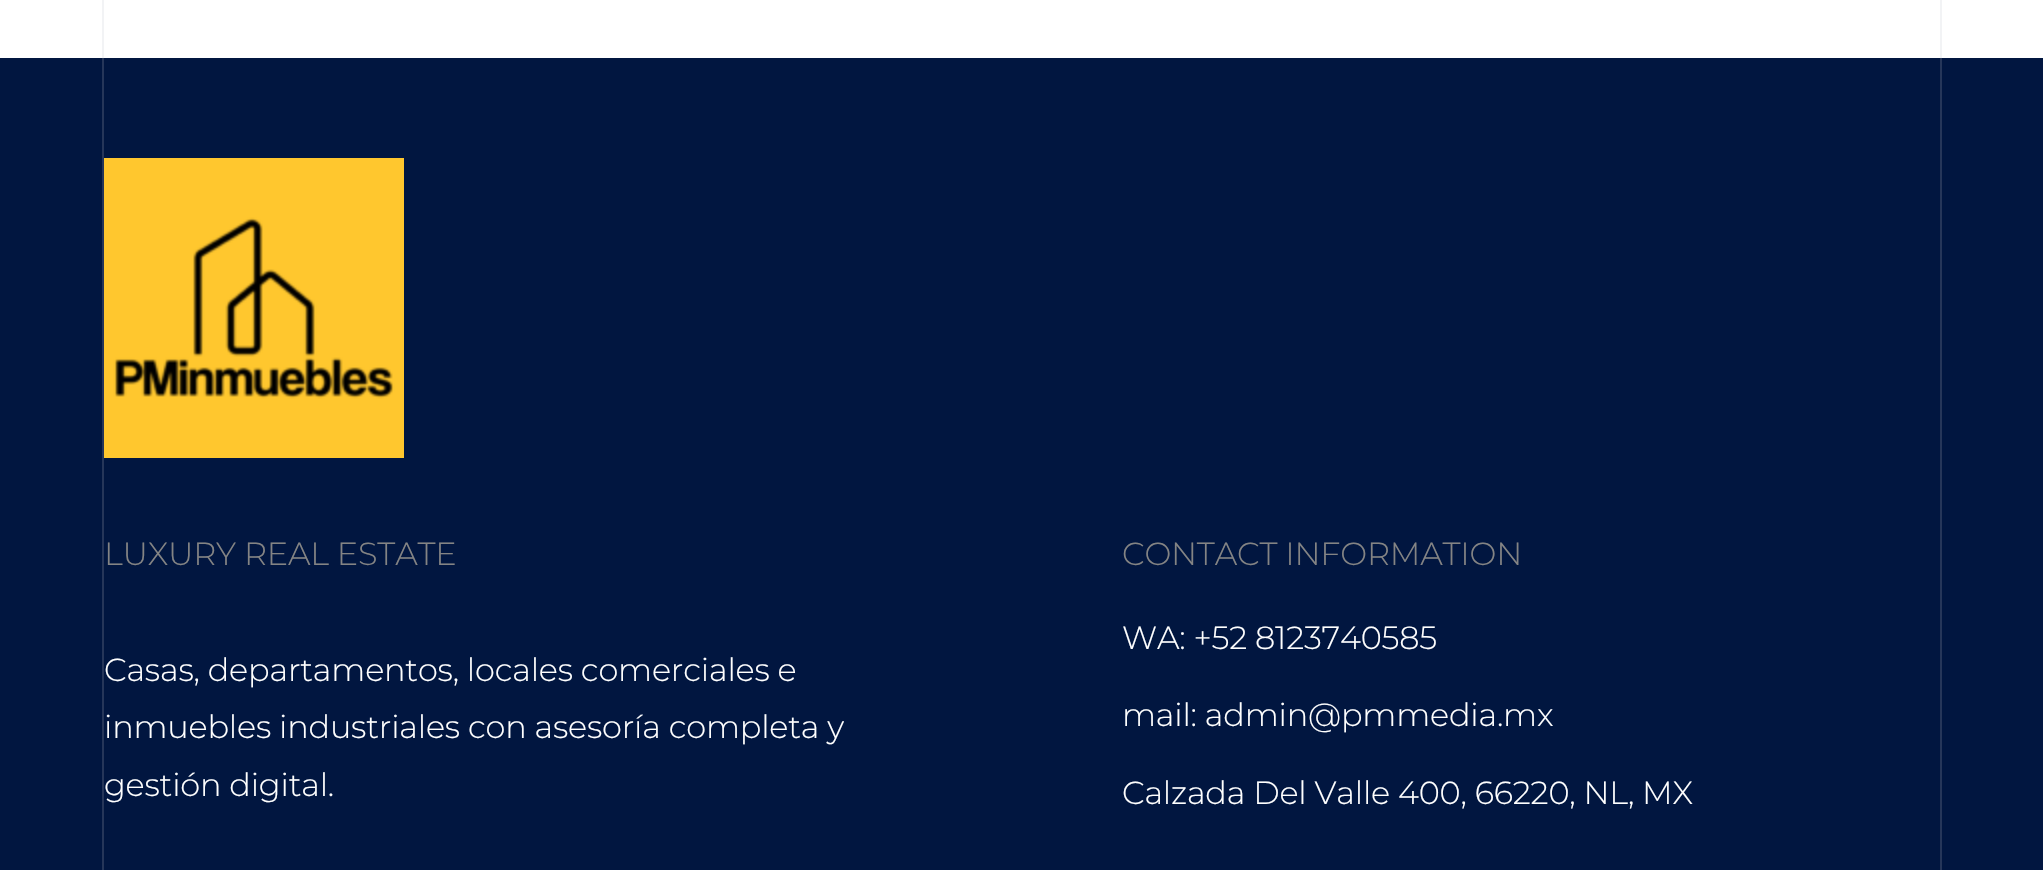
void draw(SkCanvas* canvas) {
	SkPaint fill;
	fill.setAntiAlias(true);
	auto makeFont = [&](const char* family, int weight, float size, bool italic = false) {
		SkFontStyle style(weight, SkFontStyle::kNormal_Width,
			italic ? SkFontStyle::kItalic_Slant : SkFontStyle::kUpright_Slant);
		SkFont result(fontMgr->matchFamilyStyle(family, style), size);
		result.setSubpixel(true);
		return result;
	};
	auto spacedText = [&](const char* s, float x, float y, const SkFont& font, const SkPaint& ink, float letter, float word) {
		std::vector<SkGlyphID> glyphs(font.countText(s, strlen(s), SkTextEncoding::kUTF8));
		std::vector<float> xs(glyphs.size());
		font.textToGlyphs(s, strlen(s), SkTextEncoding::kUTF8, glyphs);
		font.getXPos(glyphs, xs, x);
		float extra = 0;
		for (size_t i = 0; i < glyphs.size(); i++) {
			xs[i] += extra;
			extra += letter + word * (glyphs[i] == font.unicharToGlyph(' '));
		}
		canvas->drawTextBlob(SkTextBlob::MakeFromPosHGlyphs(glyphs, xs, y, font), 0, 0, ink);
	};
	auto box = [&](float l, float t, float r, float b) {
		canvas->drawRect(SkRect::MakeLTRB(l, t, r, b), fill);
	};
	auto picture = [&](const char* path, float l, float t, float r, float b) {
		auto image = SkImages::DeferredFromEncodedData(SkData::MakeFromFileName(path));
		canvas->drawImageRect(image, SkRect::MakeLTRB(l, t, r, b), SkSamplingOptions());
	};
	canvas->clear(0xFFFFFFFF);
	fill.setColor(0xFFF2F3F5);
	box(1940, 0, 1942, 58);
	box(102, 0, 104, 58);
	fill.setColor(0xFF011640);
	box(0, 58, 2043, 870);
	fill.setColor(0xFF263659);
	box(1940, 58, 1942, 870);
	box(102, 58, 104, 870);
	picture("image0.png", 104, 158, 404, 458);
	auto font1 = makeFont("Montserrat", 300, 32);
	fill.setColor(0xFF848484);
	spacedText("LUXURY REAL ESTATE", 104, 565, font1, fill, -0.2f, 0);
	fill.setColor(0xFFFFFFFF);
	spacedText("Casas, departamentos, locales comerciales e", 104, 681, font1, fill, -0.2f, 0);
	spacedText("inmuebles industriales con asesoría completa y", 104, 738, font1, fill, -0.2f, 0);
	spacedText("gestión digital.", 104, 796, font1, fill, -0.2f, 0);
	fill.setColor(0xFF848484);
	spacedText("CONTACT INFORMATION", 1122, 565, font1, fill, -0.2f, 0);
	fill.setColor(0xFFFFFFFF);
	spacedText("WA: +52 8123740585", 1122, 649, font1, fill, -0.2f, 0);
	spacedText("mail: admin@pmmedia.mx", 1122, 726, font1, fill, -0.2f, 0);
	spacedText("Calzada Del Valle 400, 66220, NL, MX", 1122, 804, font1, fill, -0.2f, 0);
}
